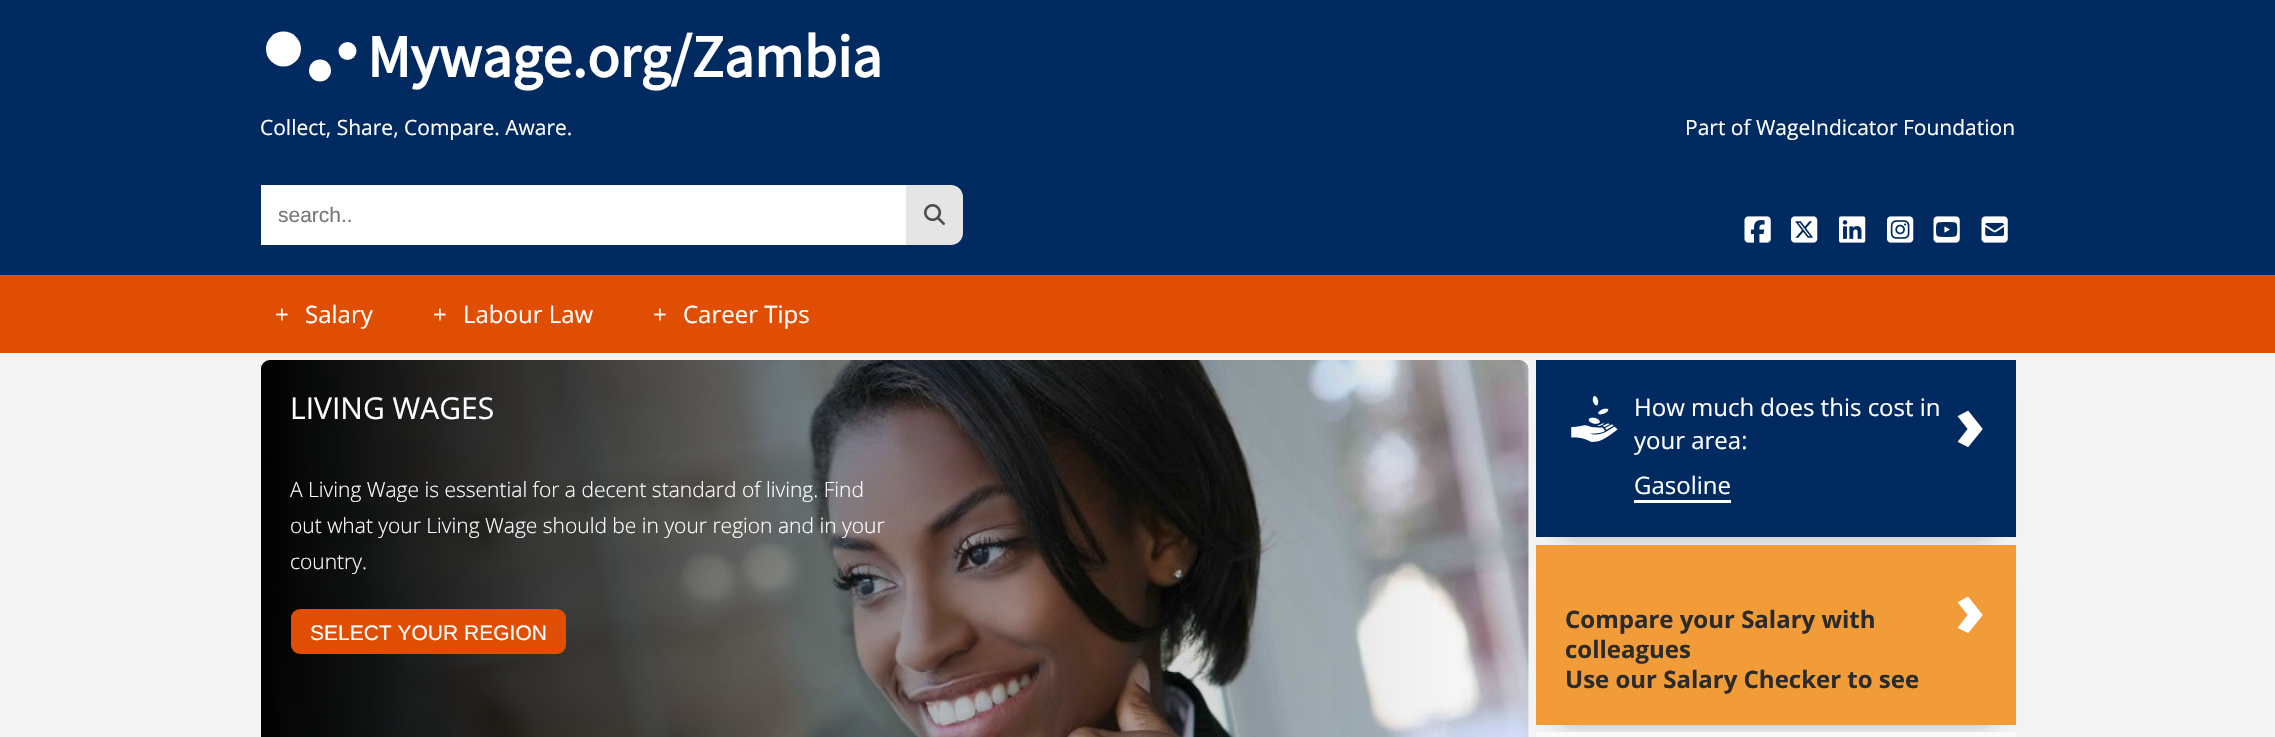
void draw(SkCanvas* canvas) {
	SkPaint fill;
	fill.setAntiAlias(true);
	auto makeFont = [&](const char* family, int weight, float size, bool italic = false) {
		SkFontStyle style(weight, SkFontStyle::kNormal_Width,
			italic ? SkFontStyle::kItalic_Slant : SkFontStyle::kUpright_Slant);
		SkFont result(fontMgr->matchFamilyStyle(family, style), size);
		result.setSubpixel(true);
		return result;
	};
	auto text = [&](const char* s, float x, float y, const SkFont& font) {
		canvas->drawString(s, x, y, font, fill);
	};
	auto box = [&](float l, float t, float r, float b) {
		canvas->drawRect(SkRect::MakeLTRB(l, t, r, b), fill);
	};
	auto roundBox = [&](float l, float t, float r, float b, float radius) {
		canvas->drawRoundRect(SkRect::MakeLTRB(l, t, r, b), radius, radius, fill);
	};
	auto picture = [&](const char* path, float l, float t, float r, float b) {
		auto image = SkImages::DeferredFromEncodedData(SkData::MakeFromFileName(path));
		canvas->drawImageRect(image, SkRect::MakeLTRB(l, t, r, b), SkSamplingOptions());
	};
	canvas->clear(0xFFF4F4F4);
	fill.setColor(0xFF002A60);
	box(0, 0, 2275, 275);
	fill.setColor(0xFFFFFFFF);
	canvas->drawCircle(283.5f, 49, 17.5f, fill);
	canvas->drawCircle(347.5f, 51, 9, fill);
	canvas->drawCircle(320, 70.5f, 11, fill);
	box(261, 185, 906, 245);
	fill.setColor(0xFFE5E5E5);
	canvas->drawPath(SkPathBuilder().moveTo(906, 185).lineTo(951, 185).cubicTo(957.5f, 185, 963, 190.5f, 963, 197).lineTo(963, 233).cubicTo(963, 239.5f, 957.5f, 245, 951, 245).lineTo(906, 245).close().detach(), fill);
	picture("image0.png", 924, 204, 945, 225);
	picture("image1.png", 1744, 216, 1771, 243);
	picture("image2.png", 1791, 216, 1818, 243);
	picture("image3.png", 1839, 216, 1866, 243);
	picture("image4.png", 1887, 216, 1914, 243);
	picture("image5.png", 1933, 216, 1960, 243);
	picture("image6.png", 1981, 216, 2008, 243);
	fill.setColor(0xFFE04E04);
	box(0, 275, 2275, 353);
	fill.setColor(0xFFFAFAFA);
	roundBox(261, 360, 1529, 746, 9);
	picture("image7.png", 261, 360, 1529, 737);
	{
		const SkColor colors[] = {0xFF000000, 0x4D000000, 0x00000000};
		const float stops[] = {0, 0.5f, 1};
		const SkPoint ends[] = {{261, 660}, {1529, 660}};
		fill.setShader(SkGradientShader::MakeLinear(ends, colors, stops, 3, SkTileMode::kClamp));
		fill.setAlpha(255);
	}
	roundBox(261, 360, 1529, 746, 9);
	fill.setShader(nullptr);
	fill.setColor(0xFFE04E04);
	canvas->drawRoundRect(SkRect::MakeLTRB(292, 610, 565, 653), 8, 8, fill);
	fill.setStyle(SkPaint::kStroke_Style);
	fill.setStrokeWidth(2);
	canvas->drawRoundRect(SkRect::MakeLTRB(292, 610, 565, 653), 8, 8, fill);
	fill.setStyle(SkPaint::kFill_Style);
	fill.setColor(0x40000000);
	fill.setMaskFilter(SkMaskFilter::MakeBlur(kNormal_SkBlurStyle, 11));
	canvas->drawRect(SkRect::MakeLTRB(1559, 405, 1994, 537), fill);
	fill.setMaskFilter(nullptr);
	fill.setColor(0xFF002A60);
	box(1536, 360, 2016, 537);
	picture("image8.png", 1571, 396, 1618, 442);
	fill.setColor(0xFFFFFFFF);
	box(1634, 500, 1731, 503);
	fill.setColor(0x40000000);
	fill.setMaskFilter(SkMaskFilter::MakeBlur(kNormal_SkBlurStyle, 11));
	canvas->drawRect(SkRect::MakeLTRB(1559, 590, 1994, 725), fill);
	fill.setMaskFilter(nullptr);
	fill.setColor(0xFFF29B39);
	box(1536, 545, 2016, 725);
	fill.setColor(0xFFFAFAFA);
	box(1536, 732, 2016, 737);
	auto font1 = makeFont("Source Sans Pro", 700, 60);
	fill.setColor(0xFFFFFFFF);
	text("Mywage.org/Zambia", 367, 77, font1);
	auto font2 = makeFont("Open Sans", 400, 21);
	text("Collect, Share, Compare. Aware.", 260, 135, font2);
	text("Part of WageIndicator Foundation", 1685, 135, font2);
	auto font3 = makeFont("Liberation Sans", 400, 21);
	fill.setColor(0xFF777777);
	text("search..", 278, 222, font3);
	auto font4 = makeFont("Open Sans", 400, 24);
	fill.setColor(0xFFFFFFFF);
	text("+", 275, 323, font4);
	text("Salary", 305, 323, font4);
	text("+", 433, 323, font4);
	text("Labour Law", 463, 323, font4);
	text("+", 653, 323, font4);
	text("Career Tips", 683, 323, font4);
	auto font5 = makeFont("Open Sans", 400, 30);
	text("LIVING WAGES", 290, 419, font5);
	auto font6 = makeFont("Open Sans", 300, 21);
	text("A Living Wage is essential for a decent standard of living. Find", 290, 497, font6);
	text("out what your Living Wage should be in your region and in your", 290, 533, font6);
	text("country.", 290, 569, font6);
	text("SELECT YOUR REGION", 310, 640, font3);
	text("How much does this cost in", 1634, 416, font4);
	text("your area:", 1634, 449, font4);
	text("Gasoline", 1634, 494, font4);
	auto font7 = makeFont("Open Sans", 800, 75);
	text("›", 1955, 450, font7);
	auto font8 = makeFont("Open Sans", 700, 24);
	fill.setColor(0xFF2B2B2A);
	text("Compare your Salary with", 1565, 628, font8);
	text("colleagues", 1565, 658, font8);
	text("Use our Salary Checker to see", 1565, 688, font8);
	fill.setColor(0xFFFFFFFF);
	text("›", 1955, 636, font7);
}
